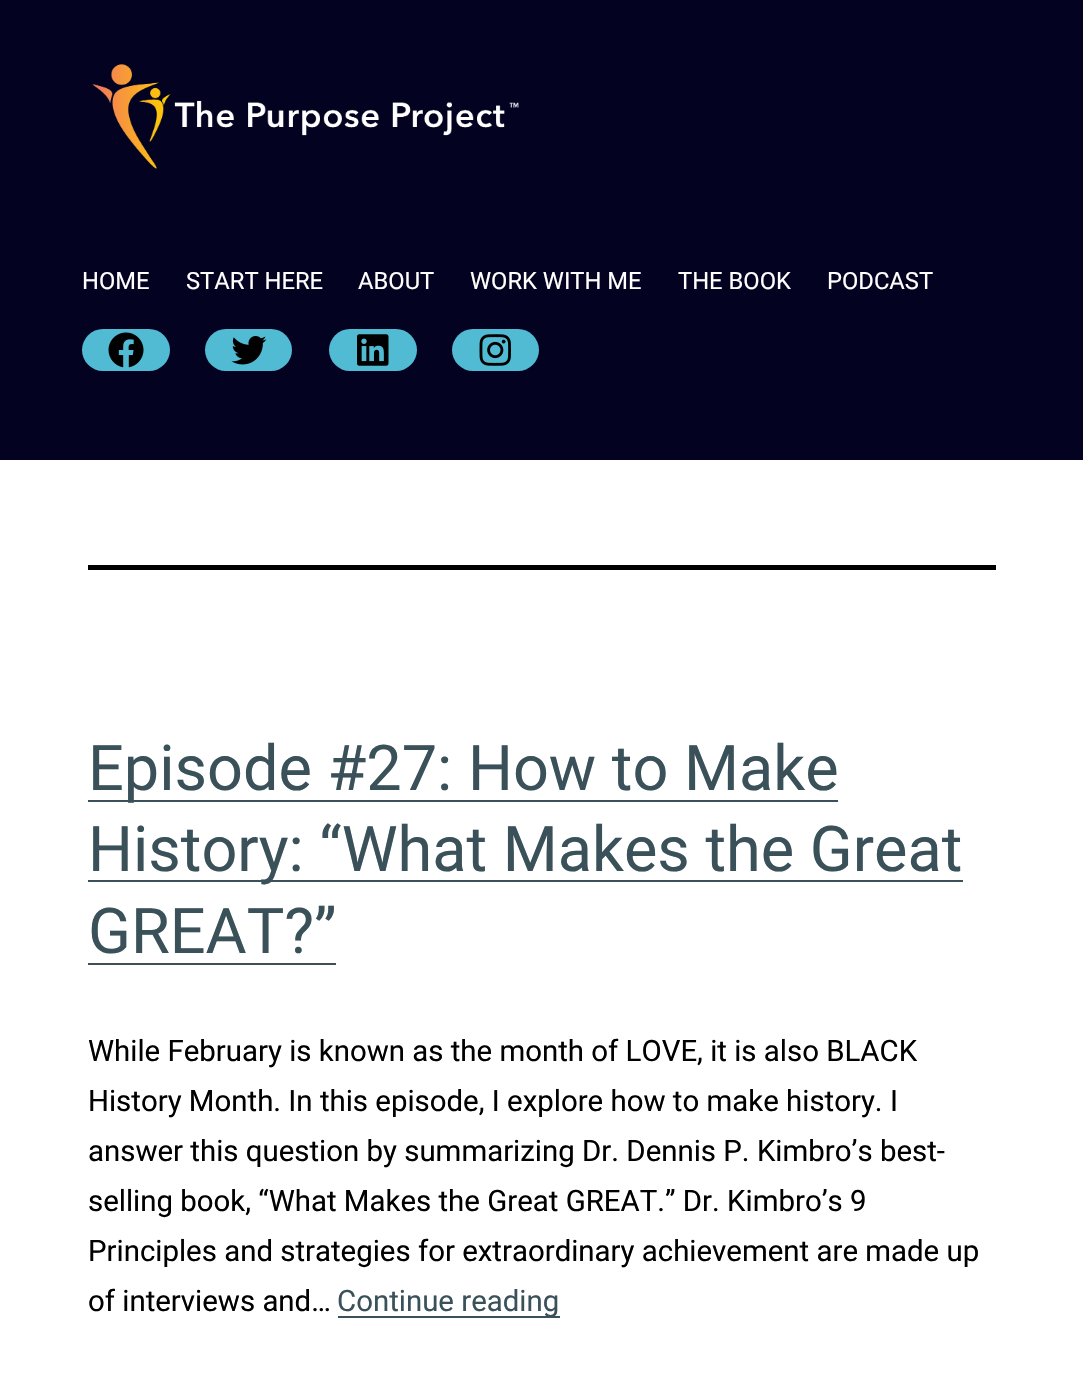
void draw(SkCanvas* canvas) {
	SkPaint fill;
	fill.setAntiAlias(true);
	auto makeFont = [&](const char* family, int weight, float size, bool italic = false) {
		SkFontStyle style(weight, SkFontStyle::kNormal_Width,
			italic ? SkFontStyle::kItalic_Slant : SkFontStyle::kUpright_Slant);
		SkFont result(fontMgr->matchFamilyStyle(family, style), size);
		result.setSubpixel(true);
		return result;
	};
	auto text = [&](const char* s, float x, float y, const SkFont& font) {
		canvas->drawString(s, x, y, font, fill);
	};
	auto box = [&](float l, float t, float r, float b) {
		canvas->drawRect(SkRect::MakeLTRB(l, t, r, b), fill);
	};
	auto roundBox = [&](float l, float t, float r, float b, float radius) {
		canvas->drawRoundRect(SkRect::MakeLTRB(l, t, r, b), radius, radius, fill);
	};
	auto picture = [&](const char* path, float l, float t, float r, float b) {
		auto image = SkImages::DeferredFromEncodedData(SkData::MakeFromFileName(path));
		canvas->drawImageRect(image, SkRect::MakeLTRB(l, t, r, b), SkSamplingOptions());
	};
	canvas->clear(0xFFFFFFFF);
	fill.setColor(0xFF030221);
	box(0, 0, 1083, 460);
	picture("image0.png", 92, 64, 519, 169);
	fill.setColor(0xFF51BBD3);
	roundBox(82, 329, 170, 371, 21);
	picture("image1.png", 108, 332, 144, 368);
	roundBox(205, 329, 292, 371, 21);
	picture("image2.png", 231, 336, 267, 365);
	roundBox(329, 329, 417, 371, 21);
	picture("image3.png", 357, 334, 389, 366);
	roundBox(452, 329, 539, 371, 21);
	picture("image4.png", 479, 334, 511, 366);
	fill.setColor(0xFF000000);
	box(88, 565, 996, 570);
	fill.setColor(0xFF3A515A);
	box(88, 800, 838, 802);
	box(88, 880, 963, 882);
	box(88, 963, 336, 965);
	box(338, 1316, 560, 1318);
	auto font1 = makeFont("Roboto", 400, 23.75f);
	fill.setColor(0xFFFFFFFF);
	text("HOME", 82, 289, font1);
	text("START HERE", 186, 289, font1);
	text("ABOUT", 358, 289, font1);
	text("WORK WITH ME", 470, 289, font1);
	text("THE BOOK", 678, 289, font1);
	text("PODCAST", 827, 289, font1);
	auto font2 = makeFont("Roboto", 400, 63);
	fill.setColor(0xFF3A515A);
	text("Episode #27: How to Make", 88, 790, font2);
	text("History: “What Makes the Great", 88, 871, font2);
	text("GREAT?”", 88, 953, font2);
	auto font3 = makeFont("Roboto", 400, 29.4f);
	fill.setColor(0xFF000000);
	text("While February is known as the month of LOVE, it is also BLACK", 88, 1061, font3);
	text("History Month. In this episode, I explore how to make history. I", 88, 1111, font3);
	text("answer this question by summarizing Dr. Dennis P. Kimbro’s best-", 88, 1161, font3);
	text("selling book, “What Makes the Great GREAT.” Dr. Kimbro’s 9", 88, 1211, font3);
	text("Principles and strategies for extraordinary achievement are made up", 88, 1261, font3);
	text("of interviews and…", 88, 1311, font3);
	fill.setColor(0xFF3A515A);
	text("Continue reading", 337, 1311, font3);
}
